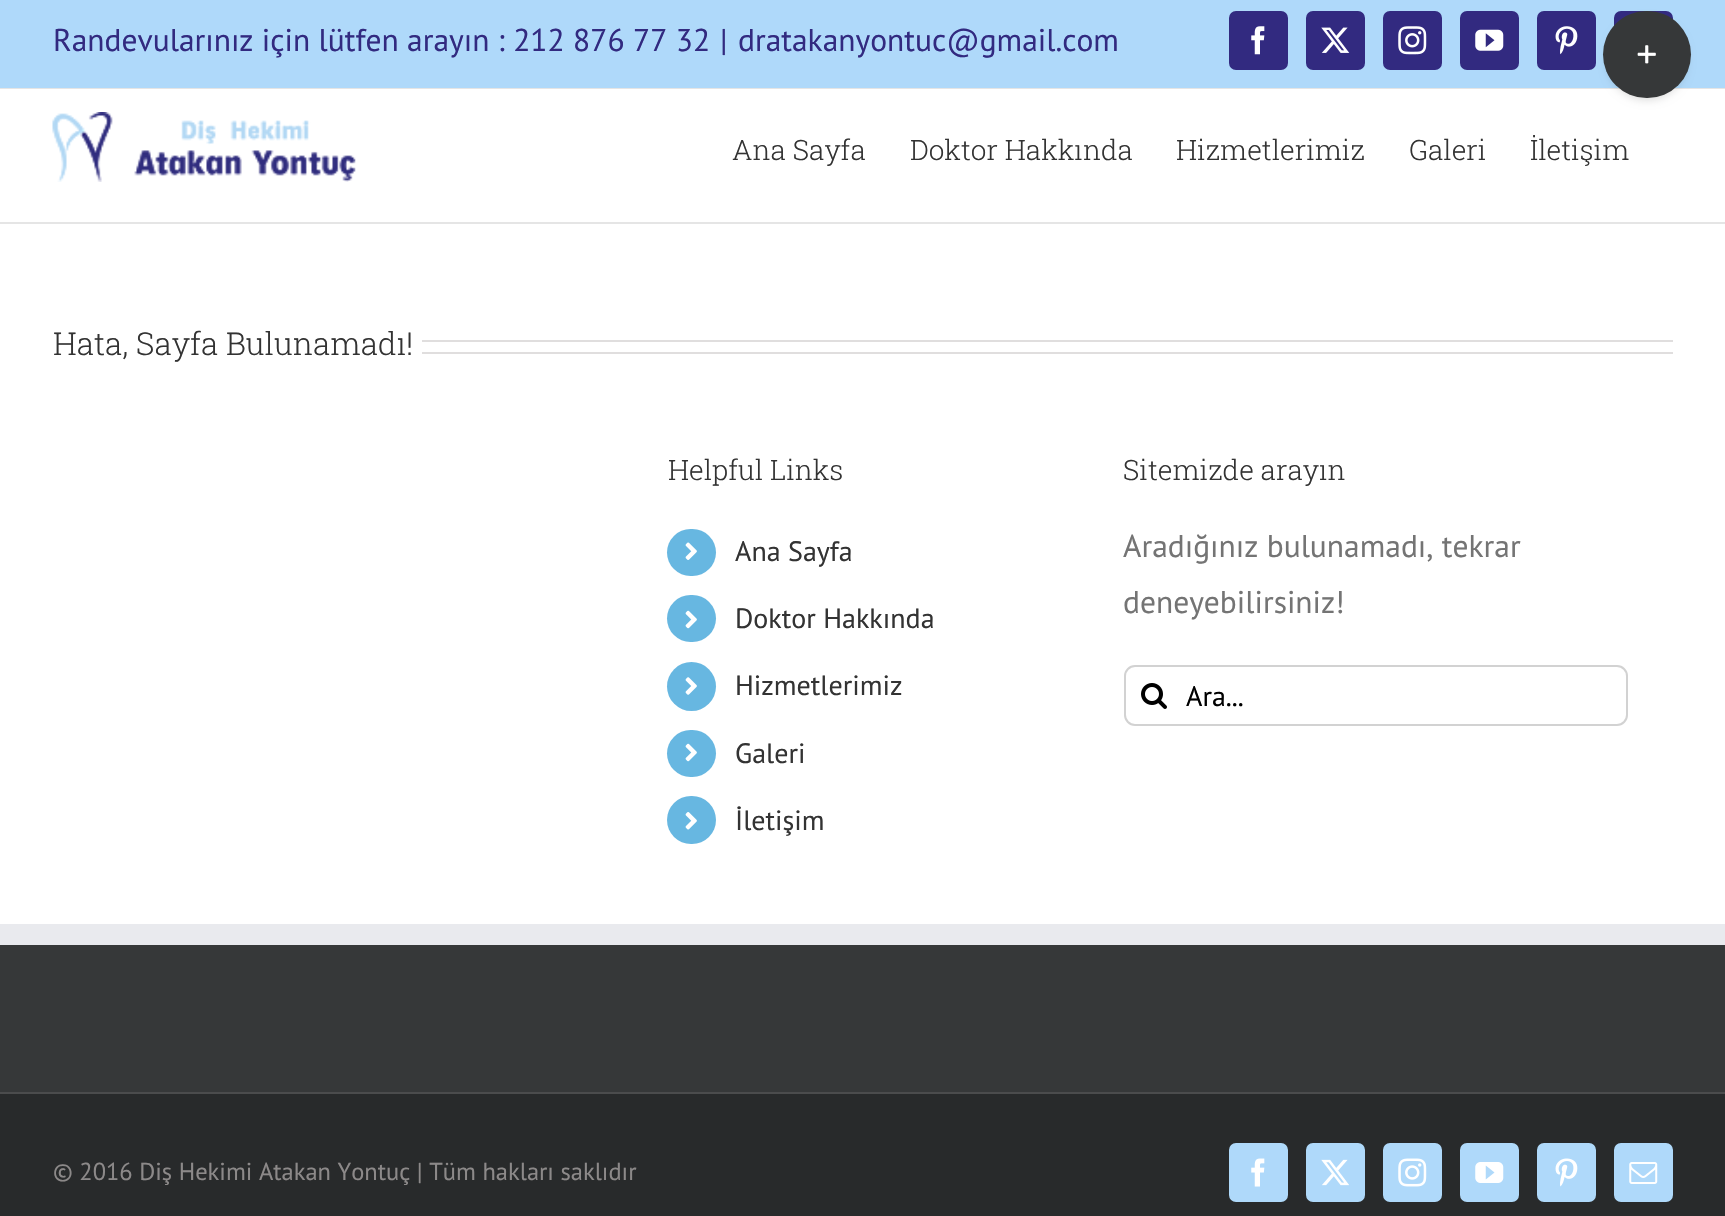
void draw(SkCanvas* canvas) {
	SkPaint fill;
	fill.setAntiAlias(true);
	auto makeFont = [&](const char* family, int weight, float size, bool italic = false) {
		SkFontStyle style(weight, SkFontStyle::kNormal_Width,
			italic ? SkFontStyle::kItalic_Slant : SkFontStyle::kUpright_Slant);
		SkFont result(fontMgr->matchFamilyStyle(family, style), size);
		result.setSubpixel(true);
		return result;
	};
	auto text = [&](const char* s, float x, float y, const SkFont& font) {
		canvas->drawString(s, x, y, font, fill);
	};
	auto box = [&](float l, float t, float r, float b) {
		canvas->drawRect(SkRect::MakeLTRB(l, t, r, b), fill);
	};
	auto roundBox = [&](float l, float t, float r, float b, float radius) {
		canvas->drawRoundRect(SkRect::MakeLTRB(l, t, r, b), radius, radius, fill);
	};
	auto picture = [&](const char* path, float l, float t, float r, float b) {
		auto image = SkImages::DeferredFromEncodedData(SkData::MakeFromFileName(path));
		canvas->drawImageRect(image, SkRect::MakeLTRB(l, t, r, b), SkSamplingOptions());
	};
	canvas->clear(0xFFFFFFFF);
	fill.setColor(0xFFAFD9FA);
	box(0, 0, 1725, 88);
	fill.setColor(0xFFE5E5E5);
	box(0, 88, 1725, 89);
	fill.setColor(0xFF322A80);
	canvas->drawRoundRect(SkRect::MakeLTRB(1230, 12, 1287, 69), 6, 6, fill);
	fill.setStyle(SkPaint::kStroke_Style);
	fill.setStrokeWidth(2);
	canvas->drawRoundRect(SkRect::MakeLTRB(1230, 12, 1287, 69), 6, 6, fill);
	picture("image0.png", 1251, 26, 1265, 55);
	fill.setStyle(SkPaint::kFill_Style);
	canvas->drawRoundRect(SkRect::MakeLTRB(1307, 12, 1364, 69), 6, 6, fill);
	fill.setStyle(SkPaint::kStroke_Style);
	canvas->drawRoundRect(SkRect::MakeLTRB(1307, 12, 1364, 69), 6, 6, fill);
	picture("image1.png", 1321, 27, 1350, 53);
	fill.setStyle(SkPaint::kFill_Style);
	canvas->drawRoundRect(SkRect::MakeLTRB(1384, 12, 1441, 69), 6, 6, fill);
	fill.setStyle(SkPaint::kStroke_Style);
	canvas->drawRoundRect(SkRect::MakeLTRB(1384, 12, 1441, 69), 6, 6, fill);
	picture("image2.png", 1398, 26, 1427, 55);
	fill.setStyle(SkPaint::kFill_Style);
	canvas->drawRoundRect(SkRect::MakeLTRB(1461, 12, 1518, 69), 6, 6, fill);
	fill.setStyle(SkPaint::kStroke_Style);
	canvas->drawRoundRect(SkRect::MakeLTRB(1461, 12, 1518, 69), 6, 6, fill);
	picture("image3.png", 1475, 29, 1504, 51);
	fill.setStyle(SkPaint::kFill_Style);
	canvas->drawRoundRect(SkRect::MakeLTRB(1538, 12, 1595, 69), 6, 6, fill);
	fill.setStyle(SkPaint::kStroke_Style);
	canvas->drawRoundRect(SkRect::MakeLTRB(1538, 12, 1595, 69), 6, 6, fill);
	picture("image4.png", 1555, 26, 1578, 55);
	fill.setStyle(SkPaint::kFill_Style);
	canvas->drawRoundRect(SkRect::MakeLTRB(1615, 12, 1672, 69), 6, 6, fill);
	fill.setStyle(SkPaint::kStroke_Style);
	canvas->drawRoundRect(SkRect::MakeLTRB(1615, 12, 1672, 69), 6, 6, fill);
	fill.setStyle(SkPaint::kFill_Style);
	fill.setColor(0xFFE5E5E5);
	box(0, 222, 1725, 224);
	picture("image5.png", 52, 112, 356, 182);
	fill.setColor(0x24000000);
	fill.setMaskFilter(SkMaskFilter::MakeBlur(kNormal_SkBlurStyle, 4.5f));
	canvas->drawRoundRect(SkRect::MakeLTRB(1607, 19, 1687, 100), 40, 40, fill);
	fill.setMaskFilter(nullptr);
	fill.setColor(0xFF363839);
	roundBox(1603, 11, 1691, 98, 43.5f);
	picture("image6.png", 1637, 45, 1656, 64);
	fill.setColor(0xFFE0DEDE);
	box(422, 340, 1673, 342);
	box(422, 352, 1673, 354);
	fill.setColor(0xFF67B7E1);
	roundBox(667, 529, 716, 576, 23.5f);
	picture("image7.png", 685, 542, 697, 560);
	roundBox(667, 595, 716, 642, 23.5f);
	picture("image8.png", 685, 610, 697, 629);
	canvas->drawCircle(691.5f, 686.5f, 24.5f, fill);
	picture("image9.png", 685, 677, 697, 695);
	roundBox(667, 730, 716, 777, 23.5f);
	picture("image8.png", 685, 743, 697, 762);
	roundBox(667, 796, 716, 844, 24);
	picture("image10.png", 685, 812, 697, 830);
	fill.setStyle(SkPaint::kStroke_Style);
	fill.setColor(0xFFD2D2D2);
	canvas->drawRoundRect(SkRect::MakeLTRB(1125, 666, 1627, 725), 10, 10, fill);
	picture("image11.png", 1141, 683, 1167, 709);
	fill.setStyle(SkPaint::kFill_Style);
	fill.setColor(0xFF363839);
	box(0, 945, 1725, 1092);
	fill.setColor(0xFFE9EAEE);
	box(0, 924, 1725, 945);
	fill.setColor(0xFF282A2B);
	box(0, 1094, 1725, 1216);
	fill.setColor(0xFF4B4C4D);
	box(0, 1092, 1725, 1094);
	fill.setColor(0xFFAFD9FA);
	canvas->drawRoundRect(SkRect::MakeLTRB(1230, 1144, 1287, 1201), 6, 6, fill);
	fill.setStyle(SkPaint::kStroke_Style);
	canvas->drawRoundRect(SkRect::MakeLTRB(1230, 1144, 1287, 1201), 6, 6, fill);
	picture("image12.png", 1251, 1158, 1265, 1187);
	fill.setStyle(SkPaint::kFill_Style);
	canvas->drawRoundRect(SkRect::MakeLTRB(1307, 1144, 1364, 1201), 6, 6, fill);
	fill.setStyle(SkPaint::kStroke_Style);
	canvas->drawRoundRect(SkRect::MakeLTRB(1307, 1144, 1364, 1201), 6, 6, fill);
	picture("image13.png", 1321, 1159, 1349, 1186);
	fill.setStyle(SkPaint::kFill_Style);
	canvas->drawRoundRect(SkRect::MakeLTRB(1384, 1144, 1441, 1201), 6, 6, fill);
	fill.setStyle(SkPaint::kStroke_Style);
	canvas->drawRoundRect(SkRect::MakeLTRB(1384, 1144, 1441, 1201), 6, 6, fill);
	picture("image14.png", 1398, 1158, 1427, 1187);
	fill.setStyle(SkPaint::kFill_Style);
	canvas->drawRoundRect(SkRect::MakeLTRB(1461, 1144, 1518, 1201), 6, 6, fill);
	fill.setStyle(SkPaint::kStroke_Style);
	canvas->drawRoundRect(SkRect::MakeLTRB(1461, 1144, 1518, 1201), 6, 6, fill);
	picture("image15.png", 1475, 1162, 1504, 1183);
	fill.setStyle(SkPaint::kFill_Style);
	canvas->drawRoundRect(SkRect::MakeLTRB(1538, 1144, 1595, 1201), 6, 6, fill);
	fill.setStyle(SkPaint::kStroke_Style);
	canvas->drawRoundRect(SkRect::MakeLTRB(1538, 1144, 1595, 1201), 6, 6, fill);
	picture("image16.png", 1555, 1158, 1578, 1187);
	fill.setStyle(SkPaint::kFill_Style);
	canvas->drawRoundRect(SkRect::MakeLTRB(1615, 1144, 1672, 1201), 6, 6, fill);
	fill.setStyle(SkPaint::kStroke_Style);
	canvas->drawRoundRect(SkRect::MakeLTRB(1615, 1144, 1672, 1201), 6, 6, fill);
	picture("image17.png", 1629, 1162, 1658, 1184);
	auto font1 = makeFont("PT Sans", 400, 31.5f);
	fill.setStyle(SkPaint::kFill_Style);
	fill.setColor(0xFF322A80);
	text("Randevularınız için lütfen arayın : 212 876 77 32", 53, 51, font1);
	text("|", 720, 51, font1);
	text("dratakanyontuc@gmail.com", 738, 51, font1);
	auto font2 = makeFont("Roboto Slab", 300, 28);
	fill.setColor(0xFF333333);
	text("Ana Sayfa", 732, 160, font2);
	text("Doktor Hakkında", 910, 160, font2);
	text("Hizmetlerimiz", 1176, 160, font2);
	text("Galeri", 1409, 160, font2);
	text("İletişim", 1530, 160, font2);
	auto font3 = makeFont("Roboto Slab", 300, 31.5f);
	text("Hata, Sayfa Bulunamadı!", 53, 355, font3);
	text("Helpful Links", 668, 480, font2);
	auto font4 = makeFont("PT Sans", 400, 28);
	text("Ana Sayfa", 735, 561, font4);
	text("Doktor Hakkında", 735, 628, font4);
	text("Hizmetlerimiz", 735, 695, font4);
	text("Galeri", 735, 763, font4);
	text("İletişim", 735, 830, font4);
	text("Sitemizde arayın", 1123, 480, font2);
	fill.setColor(0xFF747474);
	text("Aradığınız bulunamadı, tekrar", 1123, 557, font1);
	text("deneyebilirsiniz!", 1123, 613, font1);
	fill.setColor(0xFF000000);
	text("Ara...", 1186, 706, font4);
	auto font5 = makeFont("PT Sans", 400, 24.5f);
	fill.setColor(0xFF8C8989);
	text("© 2016 Diş Hekimi Atakan Yontuç | Tüm hakları saklıdır", 53, 1180, font5);
}
